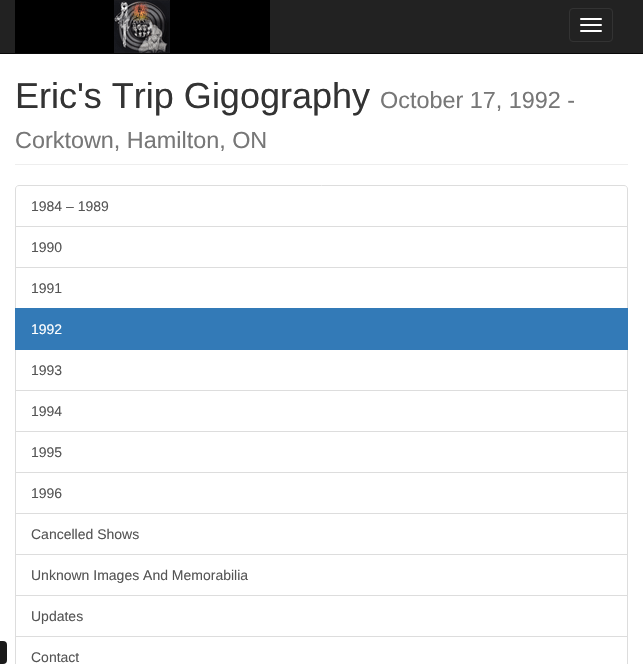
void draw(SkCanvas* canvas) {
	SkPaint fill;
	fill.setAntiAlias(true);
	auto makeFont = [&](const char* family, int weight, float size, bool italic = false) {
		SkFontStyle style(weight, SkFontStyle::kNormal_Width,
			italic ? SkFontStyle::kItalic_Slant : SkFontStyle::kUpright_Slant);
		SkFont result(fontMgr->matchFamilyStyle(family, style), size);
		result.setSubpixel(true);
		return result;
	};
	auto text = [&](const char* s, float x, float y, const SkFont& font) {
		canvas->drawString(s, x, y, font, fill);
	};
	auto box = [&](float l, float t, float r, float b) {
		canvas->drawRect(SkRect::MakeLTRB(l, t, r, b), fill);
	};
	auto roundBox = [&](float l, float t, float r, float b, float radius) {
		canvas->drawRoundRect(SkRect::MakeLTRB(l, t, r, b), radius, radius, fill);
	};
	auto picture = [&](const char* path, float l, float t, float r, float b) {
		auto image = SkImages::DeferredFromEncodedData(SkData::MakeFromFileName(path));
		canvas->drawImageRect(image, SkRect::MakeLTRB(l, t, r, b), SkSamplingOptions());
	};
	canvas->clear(0xFFFFFFFF);
	fill.setColor(0xFF222222);
	box(0, 0, 643, 53);
	fill.setColor(0xFF080808);
	box(0, 53, 643, 54);
	picture("image0.png", 15, 0, 270, 53);
	fill.setStyle(SkPaint::kStroke_Style);
	fill.setStrokeWidth(1);
	fill.setColor(0xFF333333);
	canvas->drawRoundRect(SkRect::MakeLTRB(569.5f, 8.5f, 612.5f, 41.5f), 3.5f, 3.5f, fill);
	fill.setStyle(SkPaint::kFill_Style);
	fill.setColor(0xFFFFFFFF);
	roundBox(580, 18, 602, 20, 1);
	roundBox(580, 24, 602, 26, 1);
	roundBox(580, 30, 602, 32, 1);
	fill.setColor(0xFFEEEEEE);
	box(15, 164, 628, 165);
	fill.setColor(0xFF1A1A1A);
	roundBox(-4, 641, 7, 664, 4);
	fill.setStyle(SkPaint::kStroke_Style);
	fill.setColor(0xFFDDDDDD);
	canvas->drawPath(SkPathBuilder().moveTo(19, 185.5f).lineTo(624, 185.5f).cubicTo(626, 185.5f, 627.5f, 187, 627.5f, 189).lineTo(627.5f, 226.5f).lineTo(15.5f, 226.5f).lineTo(15.5f, 189).cubicTo(15.5f, 187, 17, 185.5f, 19, 185.5f).close().detach(), fill);
	canvas->drawRect(SkRect::MakeLTRB(15.5f, 226.5f, 627.5f, 267.5f), fill);
	canvas->drawRect(SkRect::MakeLTRB(15.5f, 267.5f, 627.5f, 308.5f), fill);
	canvas->drawRect(SkRect::MakeLTRB(15.5f, 349.5f, 627.5f, 390.5f), fill);
	fill.setStyle(SkPaint::kFill_Style);
	fill.setColor(0xFF337AB7);
	box(15, 308, 628, 350);
	fill.setStyle(SkPaint::kStroke_Style);
	fill.setColor(0xFFDDDDDD);
	canvas->drawRect(SkRect::MakeLTRB(15.5f, 390.5f, 627.5f, 431.5f), fill);
	canvas->drawRect(SkRect::MakeLTRB(15.5f, 431.5f, 627.5f, 472.5f), fill);
	canvas->drawRect(SkRect::MakeLTRB(15.5f, 472.5f, 627.5f, 513.5f), fill);
	canvas->drawRect(SkRect::MakeLTRB(15.5f, 513.5f, 627.5f, 554.5f), fill);
	canvas->drawRect(SkRect::MakeLTRB(15.5f, 554.5f, 627.5f, 595.5f), fill);
	canvas->drawRect(SkRect::MakeLTRB(15.5f, 595.5f, 627.5f, 636.5f), fill);
	canvas->drawRect(SkRect::MakeLTRB(15.5f, 636.5f, 627.5f, 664.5f), fill);
	auto font1 = makeFont("Liberation Sans", 400, 36);
	fill.setStyle(SkPaint::kFill_Style);
	fill.setColor(0xFF333333);
	text("Eric's Trip Gigography", 15, 108, font1);
	auto font2 = makeFont("Liberation Sans", 400, 23.4f);
	fill.setColor(0xFF777777);
	text("October 17, 1992 -", 380, 108, font2);
	text("Corktown, Hamilton, ON", 15, 148, font2);
	auto font3 = makeFont("Liberation Sans", 400, 14);
	fill.setColor(0xFF555555);
	text("1984 – 1989", 31, 211, font3);
	text("1990", 31, 252, font3);
	text("1991", 31, 293, font3);
	fill.setColor(0xFFFFFFFF);
	text("1992", 31, 334, font3);
	fill.setColor(0xFF555555);
	text("1993", 31, 375, font3);
	text("1994", 31, 416, font3);
	text("1995", 31, 457, font3);
	text("1996", 31, 498, font3);
	text("Cancelled Shows", 31, 539, font3);
	text("Unknown Images And Memorabilia", 31, 580, font3);
	text("Updates", 31, 621, font3);
	text("Contact", 31, 662, font3);
}
